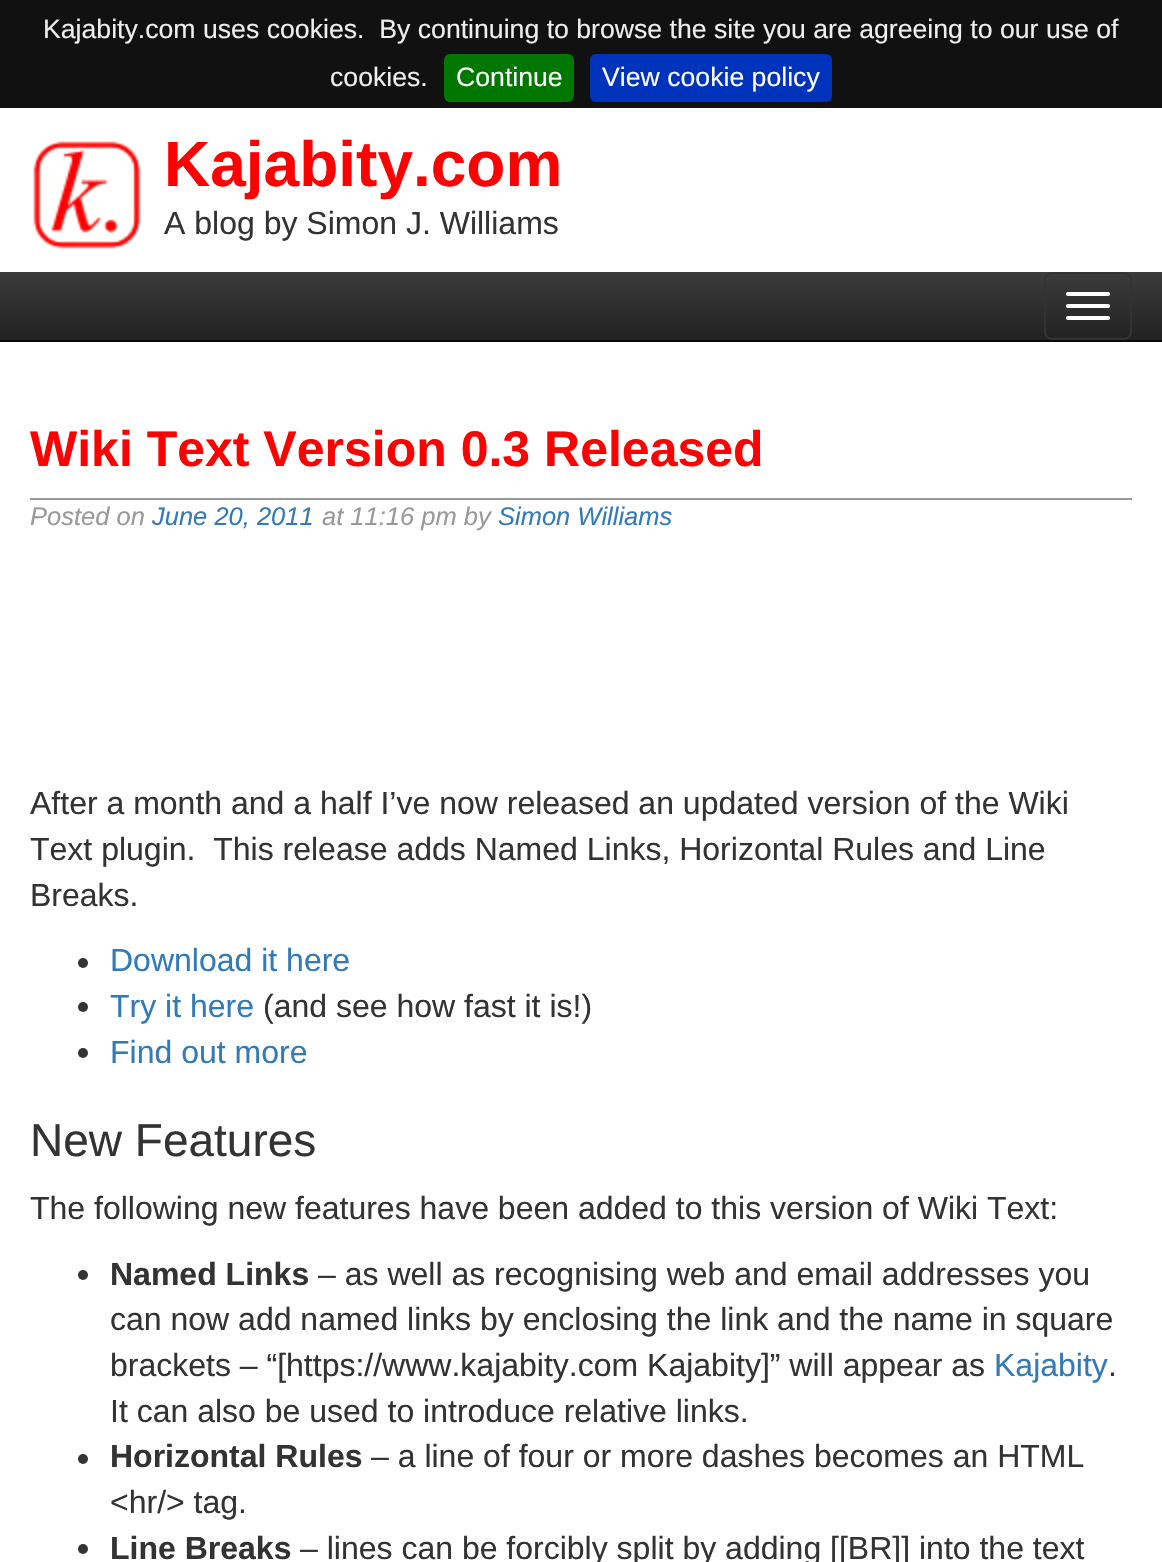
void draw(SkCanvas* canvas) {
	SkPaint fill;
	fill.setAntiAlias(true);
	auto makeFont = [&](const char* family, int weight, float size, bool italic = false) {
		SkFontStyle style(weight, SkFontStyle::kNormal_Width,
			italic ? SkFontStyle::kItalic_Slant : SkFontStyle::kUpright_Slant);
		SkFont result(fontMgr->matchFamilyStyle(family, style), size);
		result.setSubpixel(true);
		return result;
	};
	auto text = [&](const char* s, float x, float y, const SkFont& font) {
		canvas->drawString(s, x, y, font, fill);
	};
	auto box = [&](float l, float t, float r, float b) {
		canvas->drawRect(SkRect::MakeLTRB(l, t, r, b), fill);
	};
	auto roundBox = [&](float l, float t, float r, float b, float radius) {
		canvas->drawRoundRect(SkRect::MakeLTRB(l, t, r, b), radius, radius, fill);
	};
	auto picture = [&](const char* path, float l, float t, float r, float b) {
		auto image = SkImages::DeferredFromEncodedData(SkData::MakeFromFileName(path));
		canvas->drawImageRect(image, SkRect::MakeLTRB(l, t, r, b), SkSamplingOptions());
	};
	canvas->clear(0xFFFFFFFF);
	fill.setColor(0xFF111111);
	box(0, 0, 1162, 108);
	fill.setColor(0xFF007700);
	roundBox(444, 54, 574, 102, 6);
	fill.setColor(0xFF0033BB);
	roundBox(590, 54, 832, 102, 6);
	picture("image0.png", 33, 141, 141, 249);
	{
		const SkColor colors[] = {0xFF3C3C3C, 0xFF222222};
		const float stops[] = {0, 1};
		const SkPoint ends[] = {{581, 272}, {581, 340}};
		fill.setShader(SkGradientShader::MakeLinear(ends, colors, stops, 2, SkTileMode::kClamp));
		fill.setAlpha(255);
	}
	box(0, 272, 1162, 340);
	fill.setShader(nullptr);
	fill.setColor(0xFF080808);
	box(0, 340, 1162, 342);
	fill.setStyle(SkPaint::kStroke_Style);
	fill.setStrokeWidth(2);
	fill.setColor(0xFF333333);
	canvas->drawRoundRect(SkRect::MakeLTRB(1045, 273, 1131, 339), 7, 7, fill);
	fill.setStyle(SkPaint::kFill_Style);
	fill.setColor(0xFFFFFFFF);
	roundBox(1066, 292, 1110, 296, 2);
	roundBox(1066, 304, 1110, 308, 2);
	roundBox(1066, 316, 1110, 320, 2);
	fill.setColor(0xFF999999);
	box(30, 498, 1132, 500);
	fill.setColor(0xFF333333);
	canvas->drawCircle(83, 963, 5, fill);
	canvas->drawCircle(83, 1007, 5, fill);
	canvas->drawCircle(83, 1053, 5, fill);
	canvas->drawCircle(83, 1275, 5, fill);
	canvas->drawCircle(83, 1459, 5, fill);
	canvas->drawCircle(83, 1549, 5, fill);
	auto font1 = makeFont("Liberation Sans", 400, 26.65f);
	fill.setColor(0xFFEEEEEE);
	text("Kajabity.com uses cookies.  By continuing to browse the site you are agreeing to our use of", 43, 38, font1);
	text("cookies.", 330, 86, font1);
	fill.setColor(0xFFFFFFFF);
	text("Continue", 456, 86, font1);
	text("View cookie policy", 602, 86, font1);
	auto font2 = makeFont("Liberation Sans", 700, 64);
	fill.setColor(0xFFFF0000);
	text("Kajabity.com", 164, 186, font2);
	auto font3 = makeFont("Liberation Sans", 400, 32);
	fill.setColor(0xFF333333);
	text("A blog by Simon J. Williams", 164, 234, font3);
	auto font4 = makeFont("Liberation Sans", 700, 50);
	fill.setColor(0xFFFF0000);
	text("Wiki Text Version 0.3 Released", 30, 466, font4);
	auto font5 = makeFont("Liberation Sans", 400, 25.5f, true);
	fill.setColor(0xFF999999);
	text("Posted on", 30, 525, font5);
	fill.setColor(0xFF337AB7);
	text("June 20, 2011", 152, 525, font5);
	fill.setColor(0xFF999999);
	text("at 11:16 pm by", 322, 525, font5);
	fill.setColor(0xFF337AB7);
	text("Simon Williams", 498, 525, font5);
	fill.setColor(0xFF333333);
	text("After a month and a half I’ve now released an updated version of the Wiki", 30, 814, font3);
	text("Text plugin.  This release adds Named Links, Horizontal Rules and Line", 30, 860, font3);
	text("Breaks.", 30, 906, font3);
	fill.setColor(0xFF337AB7);
	text("Download it here", 110, 971, font3);
	text("Try it here", 110, 1017, font3);
	fill.setColor(0xFF333333);
	text("(and see how fast it is!)", 263, 1017, font3);
	fill.setColor(0xFF337AB7);
	text("Find out more", 110, 1063, font3);
	auto font6 = makeFont("Liberation Sans", 400, 46);
	fill.setColor(0xFF333333);
	text("New Features", 30, 1156, font6);
	text("The following new features have been added to this version of Wiki Text:", 30, 1219, font3);
	auto font7 = makeFont("Liberation Sans", 700, 32);
	text("Named Links", 110, 1285, font7);
	text("– as well as recognising web and email addresses you", 318, 1285, font3);
	text("can now add named links by enclosing the link and the name in square", 110, 1330, font3);
	text("brackets – “[https://www.kajabity.com Kajabity]” will appear as", 110, 1376, font3);
	fill.setColor(0xFF337AB7);
	text("Kajabity", 994, 1376, font3);
	fill.setColor(0xFF333333);
	text(".", 1108, 1376, font3);
	text("It can also be used to introduce relative links.", 110, 1422, font3);
	text("Horizontal Rules", 110, 1467, font7);
	text("– a line of four or more dashes becomes an HTML", 371, 1467, font3);
	text("<hr/> tag.", 110, 1513, font3);
	text("Line Breaks", 110, 1559, font7);
	text("– lines can be forcibly split by adding [[BR]] into the text", 300, 1559, font3);
}
